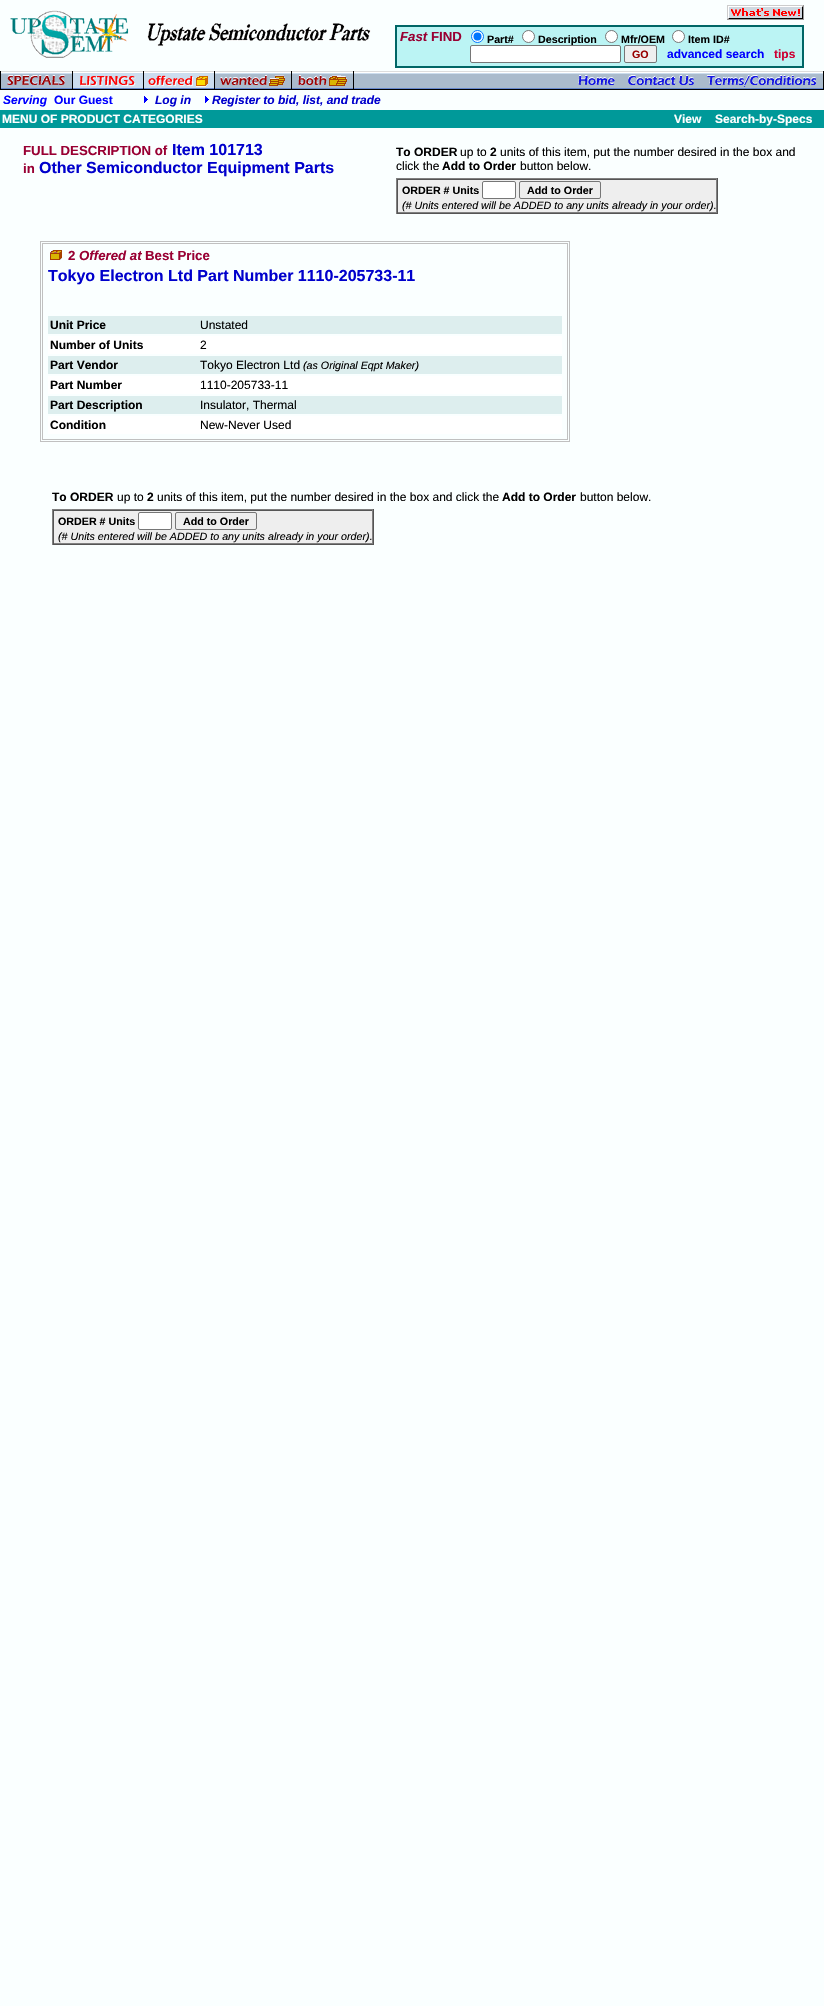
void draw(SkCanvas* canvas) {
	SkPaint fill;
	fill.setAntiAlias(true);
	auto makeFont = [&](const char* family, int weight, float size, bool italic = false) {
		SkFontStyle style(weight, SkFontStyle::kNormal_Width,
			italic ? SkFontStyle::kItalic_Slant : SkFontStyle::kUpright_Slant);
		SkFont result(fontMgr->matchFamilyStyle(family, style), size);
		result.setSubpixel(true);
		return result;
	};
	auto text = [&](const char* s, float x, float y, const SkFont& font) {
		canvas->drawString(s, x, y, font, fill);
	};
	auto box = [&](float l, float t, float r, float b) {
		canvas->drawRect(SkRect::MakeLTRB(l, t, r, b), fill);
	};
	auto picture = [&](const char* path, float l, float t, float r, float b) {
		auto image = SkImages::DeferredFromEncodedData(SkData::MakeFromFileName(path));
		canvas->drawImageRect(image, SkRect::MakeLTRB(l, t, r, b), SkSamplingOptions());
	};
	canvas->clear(0xFFFAFFFF);
	picture("image0.png", 10, 10, 371, 58);
	picture("image1.png", 727, 5, 804, 20);
	fill.setColor(0xFF006666);
	box(395, 25, 804, 68);
	fill.setColor(0xFFBBF4F4);
	box(397, 27, 802, 66);
	fill.setColor(0xFFFFFFFF);
	canvas->drawCircle(477.5f, 36.5f, 6, fill);
	fill.setStyle(SkPaint::kStroke_Style);
	fill.setStrokeWidth(1);
	fill.setColor(0xFF0075FF);
	canvas->drawCircle(477.5f, 36.5f, 6, fill);
	fill.setStyle(SkPaint::kFill_Style);
	canvas->drawCircle(477.5f, 36.5f, 4, fill);
	fill.setColor(0xFFFFFFFF);
	canvas->drawCircle(528.5f, 36.5f, 6, fill);
	fill.setStyle(SkPaint::kStroke_Style);
	fill.setColor(0xFF767676);
	canvas->drawCircle(528.5f, 36.5f, 6, fill);
	fill.setStyle(SkPaint::kFill_Style);
	fill.setColor(0xFFFFFFFF);
	canvas->drawCircle(611.5f, 36.5f, 6, fill);
	fill.setStyle(SkPaint::kStroke_Style);
	fill.setColor(0xFF767676);
	canvas->drawCircle(611.5f, 36.5f, 6, fill);
	fill.setStyle(SkPaint::kFill_Style);
	fill.setColor(0xFFFFFFFF);
	canvas->drawCircle(678.5f, 36.5f, 6, fill);
	fill.setStyle(SkPaint::kStroke_Style);
	fill.setColor(0xFF767676);
	canvas->drawCircle(678.5f, 36.5f, 6, fill);
	fill.setStyle(SkPaint::kFill_Style);
	fill.setColor(0xFFEFEFEF);
	canvas->drawRoundRect(SkRect::MakeLTRB(624.5f, 45.5f, 656.5f, 62.5f), 1.5f, 1.5f, fill);
	fill.setStyle(SkPaint::kStroke_Style);
	fill.setColor(0xFF767676);
	canvas->drawRoundRect(SkRect::MakeLTRB(624.5f, 45.5f, 656.5f, 62.5f), 1.5f, 1.5f, fill);
	fill.setStyle(SkPaint::kFill_Style);
	fill.setColor(0xFFDDDDDD);
	box(0, 71, 824, 72);
	picture("image2.png", 0, 71, 354, 72);
	fill.setColor(0xFFFFFFFF);
	box(0, 72, 824, 73);
	fill.setColor(0xFFCCDDEE);
	box(0, 73, 824, 74);
	fill.setColor(0xFF000000);
	box(823, 71, 824, 74);
	picture("image3.png", 0, 72, 354, 73);
	picture("image4.png", 0, 73, 354, 74);
	fill.setColor(0xFFAABBCC);
	box(1, 74, 823, 88);
	picture("image5.png", 0, 74, 65, 88);
	picture("image6.png", 72, 74, 143, 88);
	picture("image7.png", 143, 74, 214, 88);
	picture("image8.png", 214, 74, 285, 88);
	picture("image9.png", 291, 74, 347, 88);
	fill.setColor(0xFF000000);
	box(353, 74, 354, 88);
	picture("image10.png", 578, 75, 615, 85);
	picture("image11.png", 628, 75, 694, 85);
	picture("image12.png", 707, 74, 824, 88);
	fill.setColor(0xFF6688CC);
	box(0, 88, 824, 89);
	picture("image13.png", 0, 88, 354, 89);
	fill.setColor(0xFF000000);
	box(823, 88, 824, 89);
	box(0, 89, 824, 90);
	picture("image14.png", 144, 96, 148, 103);
	picture("image14.png", 205, 96, 209, 103);
	fill.setColor(0xFF009999);
	box(0, 110, 824, 128);
	fill.setColor(0xFF808080);
	box(396, 178, 718, 179);
	fill.setColor(0xFF555555);
	box(717, 178, 718, 214);
	box(396, 213, 718, 214);
	fill.setColor(0xFF808080);
	box(396, 178, 397, 214);
	fill.setColor(0xFFEEEEEE);
	box(398, 180, 716, 212);
	fill.setColor(0xFF555555);
	box(397, 179, 717, 180);
	fill.setColor(0xFF808080);
	box(716, 179, 717, 213);
	box(397, 212, 717, 213);
	fill.setColor(0xFF555555);
	box(397, 179, 398, 213);
	fill.setColor(0xFFFFFFFF);
	canvas->drawRoundRect(SkRect::MakeLTRB(482.5f, 181.5f, 515.5f, 198.5f), 1.5f, 1.5f, fill);
	fill.setStyle(SkPaint::kStroke_Style);
	fill.setColor(0xFF767676);
	canvas->drawRoundRect(SkRect::MakeLTRB(482.5f, 181.5f, 515.5f, 198.5f), 1.5f, 1.5f, fill);
	canvas->drawRoundRect(SkRect::MakeLTRB(519.5f, 181.5f, 600.5f, 198.5f), 1.5f, 1.5f, fill);
	fill.setColor(0xFFC0C0C0);
	canvas->drawRect(SkRect::MakeLTRB(40.5f, 241.5f, 569.5f, 441.5f), fill);
	canvas->drawRect(SkRect::MakeLTRB(42.5f, 243.5f, 567.5f, 439.5f), fill);
	picture("image15.png", 50, 250, 62, 260);
	fill.setStyle(SkPaint::kFill_Style);
	fill.setColor(0xFFDDEEEE);
	box(48, 316, 562, 334);
	fill.setColor(0xFFFFFFFF);
	box(48, 336, 562, 354);
	fill.setColor(0xFFDDEEEE);
	box(48, 356, 562, 374);
	fill.setColor(0xFFFFFFFF);
	box(48, 376, 562, 394);
	fill.setColor(0xFFDDEEEE);
	box(48, 396, 562, 414);
	fill.setColor(0xFFFFFFFF);
	box(48, 416, 562, 434);
	fill.setColor(0xFF808080);
	box(52, 509, 374, 510);
	fill.setColor(0xFF555555);
	box(373, 509, 374, 545);
	box(52, 544, 374, 545);
	fill.setColor(0xFF808080);
	box(52, 509, 53, 545);
	fill.setColor(0xFFEEEEEE);
	box(54, 511, 372, 543);
	fill.setColor(0xFF555555);
	box(53, 510, 373, 511);
	fill.setColor(0xFF808080);
	box(372, 510, 373, 544);
	box(53, 543, 373, 544);
	fill.setColor(0xFF555555);
	box(53, 510, 54, 544);
	fill.setColor(0xFFFFFFFF);
	canvas->drawRoundRect(SkRect::MakeLTRB(138.5f, 512.5f, 171.5f, 529.5f), 1.5f, 1.5f, fill);
	fill.setStyle(SkPaint::kStroke_Style);
	fill.setColor(0xFF767676);
	canvas->drawRoundRect(SkRect::MakeLTRB(138.5f, 512.5f, 171.5f, 529.5f), 1.5f, 1.5f, fill);
	canvas->drawRoundRect(SkRect::MakeLTRB(175.5f, 512.5f, 256.5f, 529.5f), 1.5f, 1.5f, fill);
	auto font1 = makeFont("Liberation Sans", 700, 13.25f, true);
	fill.setStyle(SkPaint::kFill_Style);
	fill.setColor(0xFF990033);
	text("Fast", 400, 41, font1);
	auto font2 = makeFont("Liberation Sans", 700, 13.25f);
	text("FIND", 431, 41, font2);
	auto font3 = makeFont("Liberation Sans", 700, 10.7f);
	fill.setColor(0xFF000000);
	text("Part#", 487, 43, font3);
	text("Description", 538, 43, font3);
	text("Mfr/OEM", 621, 43, font3);
	text("Item ID#", 688, 43, font3);
	fill.setColor(0xFFFFFFFF);
	canvas->drawRoundRect(SkRect::MakeLTRB(470.5f, 45.5f, 620.5f, 62.5f), 1.5f, 1.5f, fill);
	fill.setStyle(SkPaint::kStroke_Style);
	fill.setColor(0xFF767676);
	canvas->drawRoundRect(SkRect::MakeLTRB(470.5f, 45.5f, 620.5f, 62.5f), 1.5f, 1.5f, fill);
	fill.setStyle(SkPaint::kFill_Style);
	fill.setColor(0xFF990000);
	text("GO", 632, 58, font3);
	auto font4 = makeFont("Liberation Sans", 700, 12);
	fill.setColor(0xFF0000FF);
	text("advanced search", 667, 58, font4);
	fill.setColor(0xFFCC0033);
	text("tips", 774, 58, font4);
	auto font5 = makeFont("Liberation Sans", 700, 12, true);
	fill.setColor(0xFF0000FF);
	text("Serving", 3, 104, font5);
	text("Our Guest", 54, 104, font4);
	fill.setColor(0xFF0000CC);
	text("Log in", 155, 104, font5);
	text("Register to bid, list, and trade", 212, 104, font5);
	fill.setColor(0xFFFFFFFF);
	text("MENU OF PRODUCT CATEGORIES", 2, 123, font4);
	text("View", 674, 123, font4);
	text("Search-by-Specs", 715, 123, font4);
	fill.setColor(0xFF990033);
	text("FULL DESCRIPTION of", 23, 155, font2);
	auto font6 = makeFont("Liberation Sans", 700, 16);
	fill.setColor(0xFF0000CC);
	text("Item 101713", 172, 155, font6);
	fill.setColor(0xFF990033);
	text("in", 23, 173, font2);
	fill.setColor(0xFF0000CC);
	text("Other Semiconductor Equipment Parts", 39, 173, font6);
	fill.setColor(0xFF000000);
	text("To ORDER", 396, 156, font4);
	auto font7 = makeFont("Liberation Sans", 400, 12);
	text("up to", 460, 156, font7);
	text("2", 490, 156, font4);
	text("units of this item, put the number desired in the box and", 500, 156, font7);
	text("click the", 396, 170, font7);
	text("Add to Order", 442, 170, font4);
	text("button below.", 520, 170, font7);
	text("ORDER # Units", 402, 194, font3);
	text("Add to Order", 527, 194, font3);
	auto font8 = makeFont("Liberation Sans", 400, 10.7f, true);
	text("(# Units entered will be ADDED to any units already in your order).", 402, 209, font8);
	fill.setColor(0xFF990033);
	text("2", 68, 260, font2);
	text("Offered at", 79, 260, font1);
	text("Best Price", 145, 260, font2);
	fill.setColor(0xFF0000CC);
	text("Tokyo Electron Ltd Part Number 1110-205733-11", 48, 281, font6);
	fill.setColor(0xFF000000);
	text("Unit Price", 50, 329, font4);
	text("Unstated", 200, 329, font7);
	text("Number of Units", 50, 349, font4);
	text("2", 200, 349, font7);
	text("Part Vendor", 50, 369, font4);
	text("Tokyo Electron Ltd", 200, 369, font7);
	text("(as Original Eqpt Maker)", 303, 369, font8);
	text("Part Number", 50, 389, font4);
	text("1110-205733-11", 200, 389, font7);
	text("Part Description", 50, 409, font4);
	text("Insulator, Thermal", 200, 409, font7);
	text("Condition", 50, 429, font4);
	text("New-Never Used", 200, 429, font7);
	text("To ORDER", 52, 501, font4);
	text("up to", 117, 501, font7);
	text("2", 147, 501, font4);
	text("units of this item, put the number desired in the box and click the", 157, 501, font7);
	text("Add to Order", 502, 501, font4);
	text("button below.", 580, 501, font7);
	text("ORDER # Units", 58, 525, font3);
	text("Add to Order", 183, 525, font3);
	text("(# Units entered will be ADDED to any units already in your order).", 58, 540, font8);
}
